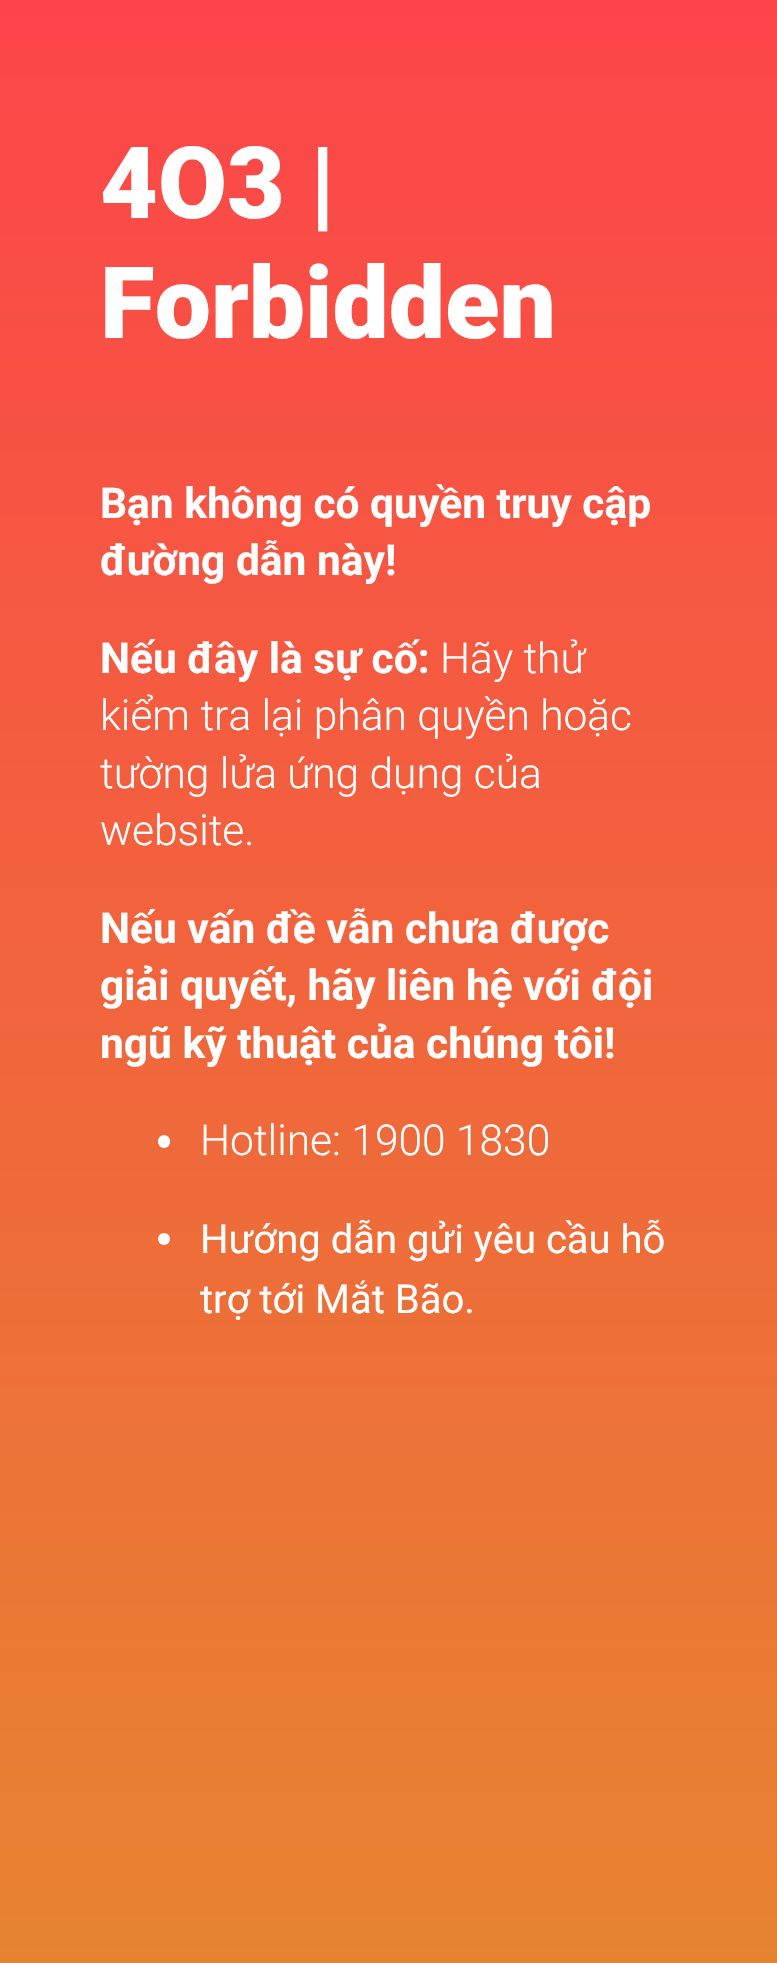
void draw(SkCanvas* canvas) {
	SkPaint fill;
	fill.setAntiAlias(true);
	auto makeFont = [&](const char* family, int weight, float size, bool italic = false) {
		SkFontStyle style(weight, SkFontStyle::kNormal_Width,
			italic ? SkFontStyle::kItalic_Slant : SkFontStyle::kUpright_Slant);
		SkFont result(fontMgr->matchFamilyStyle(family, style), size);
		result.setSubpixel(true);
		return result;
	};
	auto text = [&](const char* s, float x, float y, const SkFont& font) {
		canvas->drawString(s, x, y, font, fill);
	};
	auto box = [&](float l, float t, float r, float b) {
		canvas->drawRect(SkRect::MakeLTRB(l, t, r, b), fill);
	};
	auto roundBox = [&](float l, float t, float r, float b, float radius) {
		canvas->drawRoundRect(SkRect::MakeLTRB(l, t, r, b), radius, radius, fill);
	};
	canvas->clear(0xFFFFFFFF);
	{
		const SkColor colors[] = {0xFFFC4549, 0xFFE68430};
		const float stops[] = {0, 1};
		const SkPoint ends[] = {{389, 0}, {389, 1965}};
		fill.setShader(SkGradientShader::MakeLinear(ends, colors, stops, 2, SkTileMode::kClamp));
		fill.setAlpha(255);
	}
	box(0, 0, 777, 1963);
	fill.setShader(nullptr);
	fill.setColor(0xFFFFFFFF);
	roundBox(158, 1135, 170, 1148, 6);
	canvas->drawCircle(164, 1239, 6, fill);
	auto font1 = makeFont("Roboto", 900, 100);
	text("4O3 |", 100, 218, font1);
	text("Forbidden", 100, 338, font1);
	auto font2 = makeFont("Roboto", 700, 42.5f);
	text("Bạn không có quyền truy cập", 100, 518, font2);
	text("đường dẫn này!", 100, 575, font2);
	text("Nếu đây là sự cố:", 100, 673, font2);
	auto font3 = makeFont("Roboto", 300, 42.5f);
	text("Hãy thử", 440, 673, font3);
	text("kiểm tra lại phân quyền hoặc", 100, 730, font3);
	text("tường lửa ứng dụng của", 100, 788, font3);
	text("website.", 100, 845, font3);
	text("Nếu vấn đề vẫn chưa được", 100, 943, font2);
	text("giải quyết, hãy liên hệ với đội", 100, 1000, font2);
	text("ngũ kỹ thuật của chúng tôi!", 100, 1058, font2);
	text("Hotline: 1900 1830", 200, 1155, font3);
	auto font4 = makeFont("Roboto", 400, 40);
	text("Hướng dẫn gửi yêu cầu hỗ", 200, 1253, font4);
	text("trợ tới Mắt Bão.", 200, 1313, font4);
}
